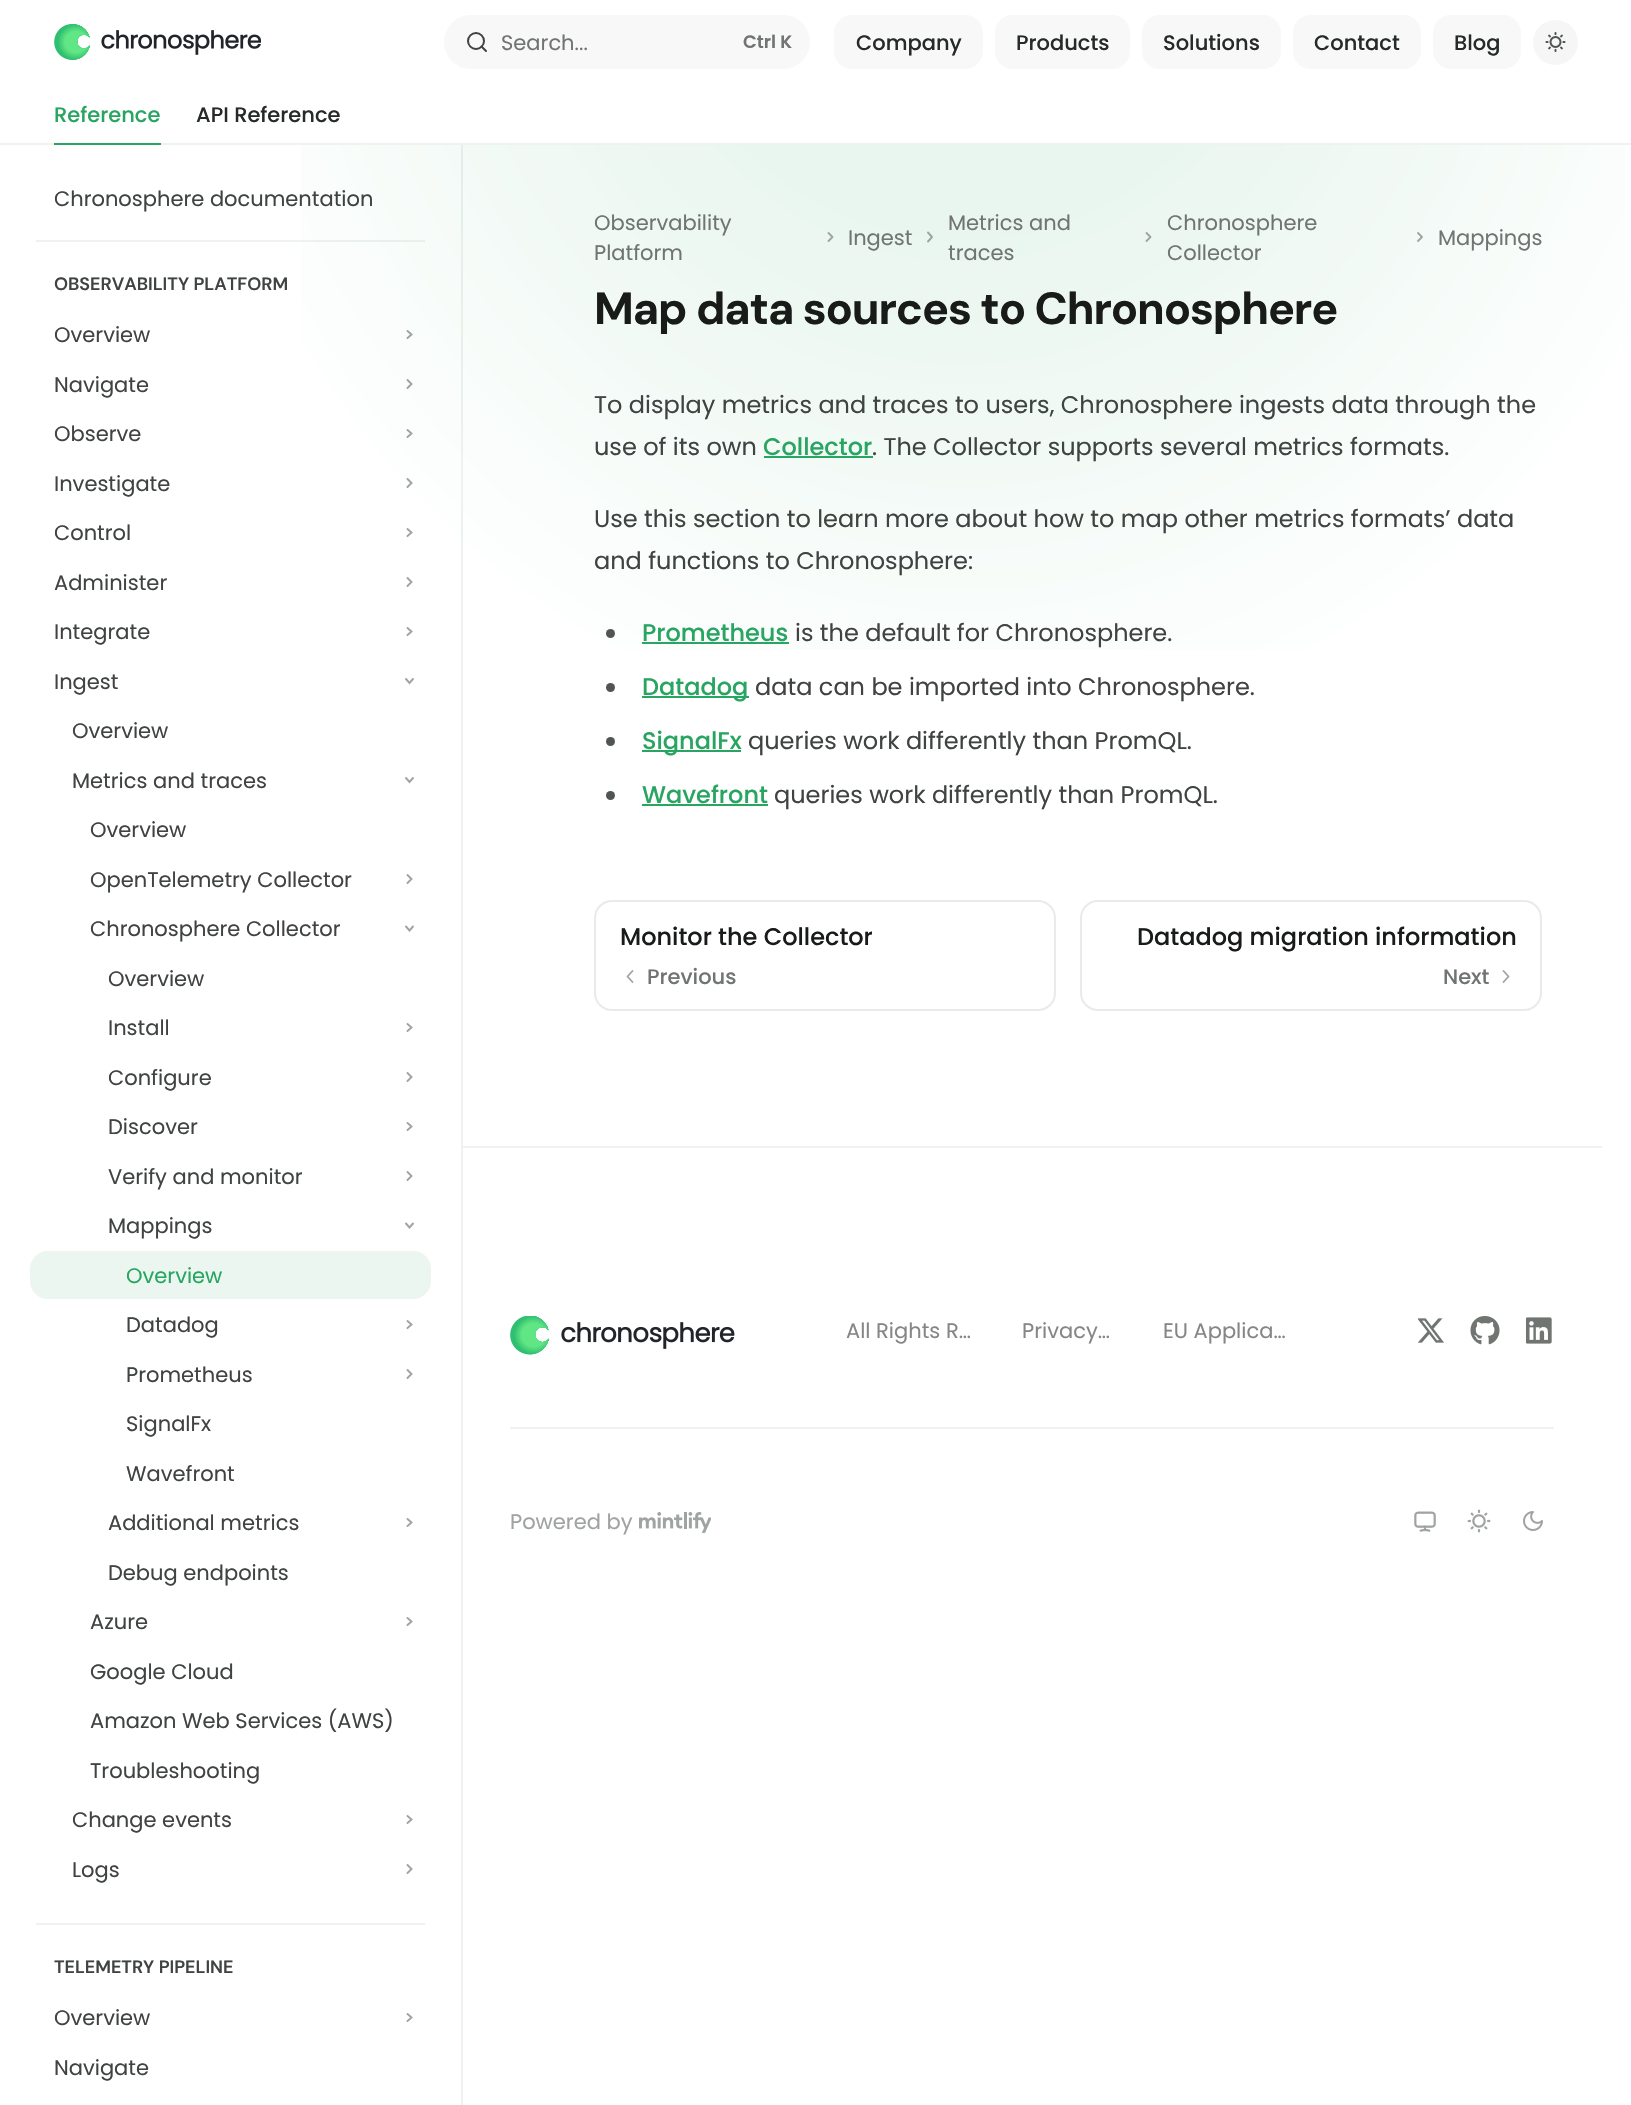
void draw(SkCanvas* canvas) {
	SkPaint fill;
	fill.setAntiAlias(true);
	auto makeFont = [&](const char* family, int weight, float size, bool italic = false) {
		SkFontStyle style(weight, SkFontStyle::kNormal_Width,
			italic ? SkFontStyle::kItalic_Slant : SkFontStyle::kUpright_Slant);
		SkFont result(fontMgr->matchFamilyStyle(family, style), size);
		result.setSubpixel(true);
		return result;
	};
	auto text = [&](const char* s, float x, float y, const SkFont& font) {
		canvas->drawString(s, x, y, font, fill);
	};
	auto spacedText = [&](const char* s, float x, float y, const SkFont& font, const SkPaint& ink, float letter, float word) {
		std::vector<SkGlyphID> glyphs(font.countText(s, strlen(s), SkTextEncoding::kUTF8));
		std::vector<float> xs(glyphs.size());
		font.textToGlyphs(s, strlen(s), SkTextEncoding::kUTF8, glyphs);
		font.getXPos(glyphs, xs, x);
		float extra = 0;
		for (size_t i = 0; i < glyphs.size(); i++) {
			xs[i] += extra;
			extra += letter + word * (glyphs[i] == font.unicharToGlyph(' '));
		}
		canvas->drawTextBlob(SkTextBlob::MakeFromPosHGlyphs(glyphs, xs, y, font), 0, 0, ink);
	};
	auto box = [&](float l, float t, float r, float b) {
		canvas->drawRect(SkRect::MakeLTRB(l, t, r, b), fill);
	};
	auto roundBox = [&](float l, float t, float r, float b, float radius) {
		canvas->drawRoundRect(SkRect::MakeLTRB(l, t, r, b), radius, radius, fill);
	};
	auto picture = [&](const char* path, float l, float t, float r, float b) {
		auto image = SkImages::DeferredFromEncodedData(SkData::MakeFromFileName(path));
		canvas->drawImageRect(image, SkRect::MakeLTRB(l, t, r, b), SkSamplingOptions());
	};
	canvas->clear(0xFFFFFFFF);
	picture("image0.png", 54, 24, 261, 60);
	fill.setColor(0xFFF8F8F8);
	roundBox(444, 15, 810, 69, 27);
	fill.setStyle(SkPaint::kStroke_Style);
	fill.setStrokeWidth(2);
	fill.setColor(0xFF3F4341);
	canvas->drawCircle(476, 41, 8, fill);
	fill.setStrokeCap(SkPaint::kRound_Cap);
	fill.setStrokeJoin(SkPaint::kRound_Join);
	canvas->drawPath(SkPathBuilder().moveTo(486, 51).lineTo(481.5f, 46.5f).detach(), fill);
	fill.setStyle(SkPaint::kFill_Style);
	fill.setColor(0xFFF8F8F8);
	roundBox(834, 15, 983, 69, 18);
	roundBox(995, 15, 1130, 69, 18);
	roundBox(1142, 15, 1281, 69, 18);
	roundBox(1293, 15, 1421, 69, 18);
	roundBox(1433, 15, 1521, 69, 18);
	fill.setColor(0xFFF6F6F6);
	canvas->drawCircle(1555.5f, 42.5f, 22.5f, fill);
	picture("image1.png", 1545, 32, 1566, 52);
	fill.setColor(0xFFEFF3F0);
	box(462, 1146, 1602, 1148);
	box(461, 144, 463, 2105);
	box(0, 143, 1631, 145);
	fill.setColor(0xFF28A561);
	box(54, 143, 161, 145);
	fill.setColor(0xFFEFF3F0);
	box(36, 240, 425, 242);
	fill.setStyle(SkPaint::kStroke_Style);
	fill.setStrokeWidth(1.9f);
	fill.setStrokeJoin(SkPaint::kMiter_Join);
	fill.setColor(0xFF9FA3A1);
	canvas->drawPath(SkPathBuilder().moveTo(407.5f, 331).lineTo(411.5f, 334.5f).lineTo(407.5f, 338).moveTo(407.5f, 380).lineTo(411.5f, 384).lineTo(407.5f, 388).detach(), fill);
	canvas->drawPath(SkPathBuilder().moveTo(407.5f, 430).lineTo(411.5f, 433.5f).lineTo(407.5f, 437).moveTo(407.5f, 479).lineTo(411.5f, 483).lineTo(407.5f, 487).detach(), fill);
	canvas->drawPath(SkPathBuilder().moveTo(407.5f, 529).lineTo(411.5f, 532.5f).lineTo(407.5f, 536).moveTo(407.5f, 578).lineTo(411.5f, 582).lineTo(407.5f, 586).detach(), fill);
	canvas->drawPath(SkPathBuilder().moveTo(407.5f, 628).lineTo(411.5f, 631.5f).lineTo(407.5f, 635).detach(), fill);
	canvas->drawPath(SkPathBuilder().moveTo(413, 679).lineTo(409.5f, 683).lineTo(406, 679).detach(), fill);
	canvas->drawPath(SkPathBuilder().moveTo(413, 778).lineTo(409.5f, 782).lineTo(406, 778).detach(), fill);
	canvas->drawPath(SkPathBuilder().moveTo(407.5f, 875).lineTo(411.5f, 879).lineTo(407.5f, 883).detach(), fill);
	canvas->drawPath(SkPathBuilder().moveTo(413, 926.5f).lineTo(409.5f, 930.5f).lineTo(406, 926.5f).detach(), fill);
	canvas->drawPath(SkPathBuilder().moveTo(407.5f, 1024).lineTo(411.5f, 1027.5f).lineTo(407.5f, 1031).moveTo(407.5f, 1073).lineTo(411.5f, 1077).lineTo(407.5f, 1081).detach(), fill);
	canvas->drawPath(SkPathBuilder().moveTo(407.5f, 1123).lineTo(411.5f, 1126.5f).lineTo(407.5f, 1130).moveTo(407.5f, 1172).lineTo(411.5f, 1176).lineTo(407.5f, 1180).detach(), fill);
	canvas->drawPath(SkPathBuilder().moveTo(413, 1223.5f).lineTo(409.5f, 1227.5f).lineTo(406, 1223.5f).detach(), fill);
	fill.setStyle(SkPaint::kFill_Style);
	fill.setColor(0xFFEAF6EF);
	roundBox(30, 1251, 431, 1299, 18);
	fill.setStyle(SkPaint::kStroke_Style);
	fill.setColor(0xFF9FA3A1);
	canvas->drawPath(SkPathBuilder().moveTo(407.5f, 1321).lineTo(411.5f, 1324.5f).lineTo(407.5f, 1328).moveTo(407.5f, 1370).lineTo(411.5f, 1374).lineTo(407.5f, 1378).detach(), fill);
	canvas->drawPath(SkPathBuilder().moveTo(407.5f, 1519).lineTo(411.5f, 1522.5f).lineTo(407.5f, 1526).detach(), fill);
	canvas->drawPath(SkPathBuilder().moveTo(407.5f, 1618).lineTo(411.5f, 1621.5f).lineTo(407.5f, 1625).detach(), fill);
	canvas->drawPath(SkPathBuilder().moveTo(407.5f, 1816).lineTo(411.5f, 1819.5f).lineTo(407.5f, 1823).moveTo(407.5f, 1865).lineTo(411.5f, 1869).lineTo(407.5f, 1873).detach(), fill);
	fill.setStyle(SkPaint::kFill_Style);
	fill.setColor(0xFFEFF3F0);
	box(36, 1923, 425, 1925);
	fill.setStyle(SkPaint::kStroke_Style);
	fill.setColor(0xFF9FA3A1);
	canvas->drawPath(SkPathBuilder().moveTo(407.5f, 2014).lineTo(411.5f, 2017.5f).lineTo(407.5f, 2021).detach(), fill);
	fill.setStyle(SkPaint::kFill_Style);
	{
		const SkColor colors[] = {0x1A28A561, 0x0028A561};
		const float stops[] = {0.39f, 1};
		SkMatrix m = SkMatrix::Translate(963, -111).preScale(810, 876);
		fill.setShader(SkGradientShader::MakeRadial({0, 0}, 1, colors, stops, 2, SkTileMode::kClamp, 0, &m));
		fill.setAlpha(255);
	}
	box(301, 145, 1625, 650);
	fill.setStyle(SkPaint::kStroke_Style);
	fill.setStrokeWidth(1.8f);
	fill.setStrokeJoin(SkPaint::kRound_Join);
	fill.setShader(nullptr);
	fill.setColor(0xFF9FA3A1);
	canvas->drawPath(SkPathBuilder().moveTo(828.5f, 241).lineTo(832.5f, 237).lineTo(828.5f, 233).detach(), fill);
	fill.setStrokeWidth(1.9f);
	canvas->drawPath(SkPathBuilder().moveTo(928, 241.5f).lineTo(932, 237).lineTo(928, 232.5f).detach(), fill);
	fill.setStrokeWidth(1.8f);
	canvas->drawPath(SkPathBuilder().moveTo(1146.5f, 241).lineTo(1150.5f, 237).lineTo(1146.5f, 233).detach(), fill);
	canvas->drawPath(SkPathBuilder().moveTo(1418, 241).lineTo(1422, 237).lineTo(1418, 233).detach(), fill);
	fill.setStyle(SkPaint::kFill_Style);
	fill.setColor(0xFF28A561);
	box(764, 456, 873, 458);
	fill.setColor(0xFF515552);
	canvas->drawCircle(610.5f, 633.5f, 4.5f, fill);
	fill.setColor(0xFF28A561);
	box(642, 642, 789, 644);
	fill.setColor(0xFF515552);
	canvas->drawCircle(610.5f, 687.5f, 4.5f, fill);
	fill.setColor(0xFF28A561);
	box(642, 696, 749, 698);
	fill.setColor(0xFF515552);
	canvas->drawCircle(610.5f, 741.5f, 4.5f, fill);
	fill.setColor(0xFF28A561);
	box(642, 750, 741, 752);
	fill.setColor(0xFF515552);
	canvas->drawCircle(610.5f, 795.5f, 4.5f, fill);
	fill.setColor(0xFF28A561);
	box(642, 804, 768, 806);
	fill.setStyle(SkPaint::kStroke_Style);
	fill.setStrokeWidth(2);
	fill.setStrokeCap(SkPaint::kButt_Cap);
	fill.setStrokeJoin(SkPaint::kMiter_Join);
	fill.setColor(0xFFE9EBEA);
	canvas->drawRoundRect(SkRect::MakeLTRB(595, 901, 1055, 1010), 17, 17, fill);
	fill.setStrokeWidth(1.8f);
	fill.setStrokeCap(SkPaint::kRound_Cap);
	fill.setStrokeJoin(SkPaint::kRound_Join);
	fill.setColor(0xFF9FA3A1);
	canvas->drawPath(SkPathBuilder().moveTo(632.5f, 982).lineTo(627.5f, 976.5f).lineTo(632.5f, 971).detach(), fill);
	fill.setStrokeWidth(2);
	fill.setStrokeCap(SkPaint::kButt_Cap);
	fill.setStrokeJoin(SkPaint::kMiter_Join);
	fill.setColor(0xFFE9EBEA);
	canvas->drawRoundRect(SkRect::MakeLTRB(1081, 901, 1541, 1010), 17, 17, fill);
	fill.setStrokeWidth(1.8f);
	fill.setStrokeCap(SkPaint::kRound_Cap);
	fill.setStrokeJoin(SkPaint::kRound_Join);
	fill.setColor(0xFF9FA3A1);
	canvas->drawPath(SkPathBuilder().moveTo(1503.5f, 982).lineTo(1508.5f, 976.5f).lineTo(1503.5f, 971).detach(), fill);
	picture("image2.png", 510, 1316, 735, 1355);
	picture("image3.png", 1418, 1318, 1444, 1343);
	picture("image4.png", 1470, 1316, 1500, 1345);
	picture("image5.png", 1526, 1317, 1552, 1344);
	fill.setStyle(SkPaint::kFill_Style);
	fill.setColor(0xFFEFF3F0);
	box(510, 1427, 1554, 1429);
	picture("image6.png", 639, 1512, 711, 1533);
	picture("image7.png", 1414, 1511, 1436, 1532);
	picture("image8.png", 1467, 1509, 1491, 1533);
	picture("image9.png", 1523, 1511, 1543, 1531);
	auto font1 = makeFont("Poppins", 400, 21);
	fill.setColor(0xFF717572);
	text("Search...", 501, 50, font1);
	auto font2 = makeFont("Poppins", 600, 18);
	text("Ctrl K", 743, 48, font2);
	auto font3 = makeFont("Poppins", 500, 21);
	fill.setColor(0xFF262A28);
	text("Company", 856, 50, font3);
	text("Products", 1016, 50, font3);
	text("Solutions", 1163, 50, font3);
	text("Contact", 1314, 50, font3);
	text("Blog", 1454, 50, font3);
	fill.setColor(0xFF28A561);
	text("Reference", 54, 122, font3);
	fill.setColor(0xFF262A28);
	text("API Reference", 196, 122, font3);
	fill.setColor(0xFF3F4341);
	text("Chronosphere documentation", 54, 206, font1);
	auto font4 = makeFont("DM Sans", 600, 18);
	text("OBSERVABILITY PLATFORM", 54, 290, font4);
	text("Overview", 54, 342, font1);
	text("Navigate", 54, 392, font1);
	text("Observe", 54, 441, font1);
	text("Investigate", 54, 491, font1);
	text("Control", 54, 540, font1);
	text("Administer", 54, 590, font1);
	text("Integrate", 54, 639, font1);
	text("Ingest", 54, 689, font1);
	text("Overview", 72, 738, font1);
	text("Metrics and traces", 72, 788, font1);
	text("Overview", 90, 837, font1);
	text("OpenTelemetry Collector", 90, 887, font1);
	text("Chronosphere Collector", 90, 936, font1);
	text("Overview", 108, 986, font1);
	text("Install", 108, 1035, font1);
	text("Configure", 108, 1085, font1);
	text("Discover", 108, 1134, font1);
	text("Verify and monitor", 108, 1184, font1);
	text("Mappings", 108, 1233, font1);
	fill.setColor(0xFF28A561);
	text("Overview", 126, 1283, font1);
	fill.setColor(0xFF3F4341);
	text("Datadog", 126, 1332, font1);
	text("Prometheus", 126, 1382, font1);
	text("SignalFx", 126, 1431, font1);
	text("Wavefront", 126, 1481, font1);
	text("Additional metrics", 108, 1530, font1);
	text("Debug endpoints", 108, 1580, font1);
	text("Azure", 90, 1629, font1);
	text("Google Cloud", 90, 1679, font1);
	text("Amazon Web Services (AWS)", 90, 1728, font1);
	text("Troubleshooting", 90, 1778, font1);
	text("Change events", 72, 1827, font1);
	text("Logs", 72, 1877, font1);
	text("TELEMETRY PIPELINE", 54, 1973, font4);
	text("Overview", 54, 2025, font1);
	text("Navigate", 54, 2075, font1);
	fill.setColor(0xFF717572);
	text("Observability", 594, 230, font1);
	text("Platform", 594, 260, font1);
	text("Ingest", 848, 245, font1);
	text("Metrics and", 948, 230, font1);
	text("traces", 948, 260, font1);
	text("Chronosphere", 1167, 230, font1);
	text("Collector", 1167, 260, font1);
	text("Mappings", 1438, 245, font1);
	auto font5 = makeFont("DM Sans", 700, 45);
	fill.setColor(0xFF181B19);
	spacedText("Map data sources to Chronosphere", 594, 324, font5, fill, -1.1f, 0);
	auto font6 = makeFont("Poppins", 400, 24);
	fill.setColor(0xFF3F4341);
	text("To display metrics and traces to users, Chronosphere ingests data through the", 594, 413, font6);
	text("use of its own", 594, 455, font6);
	auto font7 = makeFont("Poppins", 500, 24);
	fill.setColor(0xFF28A561);
	text("Collector", 763, 455, font7);
	fill.setColor(0xFF3F4341);
	text(". The Collector supports several metrics formats.", 872, 455, font6);
	text("Use this section to learn more about how to map other metrics formats’ data", 594, 527, font6);
	text("and functions to Chronosphere:", 594, 569, font6);
	fill.setColor(0xFF28A561);
	text("Prometheus", 642, 641, font7);
	fill.setColor(0xFF3F4341);
	text("is the default for Chronosphere.", 795, 641, font6);
	fill.setColor(0xFF28A561);
	text("Datadog", 642, 695, font7);
	fill.setColor(0xFF3F4341);
	text("data can be imported into Chronosphere.", 755, 695, font6);
	fill.setColor(0xFF28A561);
	text("SignalFx", 642, 749, font7);
	fill.setColor(0xFF3F4341);
	text("queries work differently than PromQL.", 748, 749, font6);
	fill.setColor(0xFF28A561);
	text("Wavefront", 642, 803, font7);
	fill.setColor(0xFF3F4341);
	text("queries work differently than PromQL.", 774, 803, font6);
	fill.setColor(0xFF181B19);
	text("Monitor the Collector", 620, 945, font7);
	fill.setColor(0xFF717572);
	text("Previous", 647, 984, font3);
	fill.setColor(0xFF181B19);
	text("Datadog migration information", 1137, 945, font7);
	fill.setColor(0xFF717572);
	text("Next", 1443, 984, font3);
	fill.setColor(0xFF858786);
	text("All Rights R…", 846, 1338, font1);
	text("Privacy…", 1022, 1338, font1);
	text("EU Applica…", 1163, 1338, font1);
	fill.setColor(0xFF9FA3A1);
	text("Powered by", 510, 1529, font1);
}
